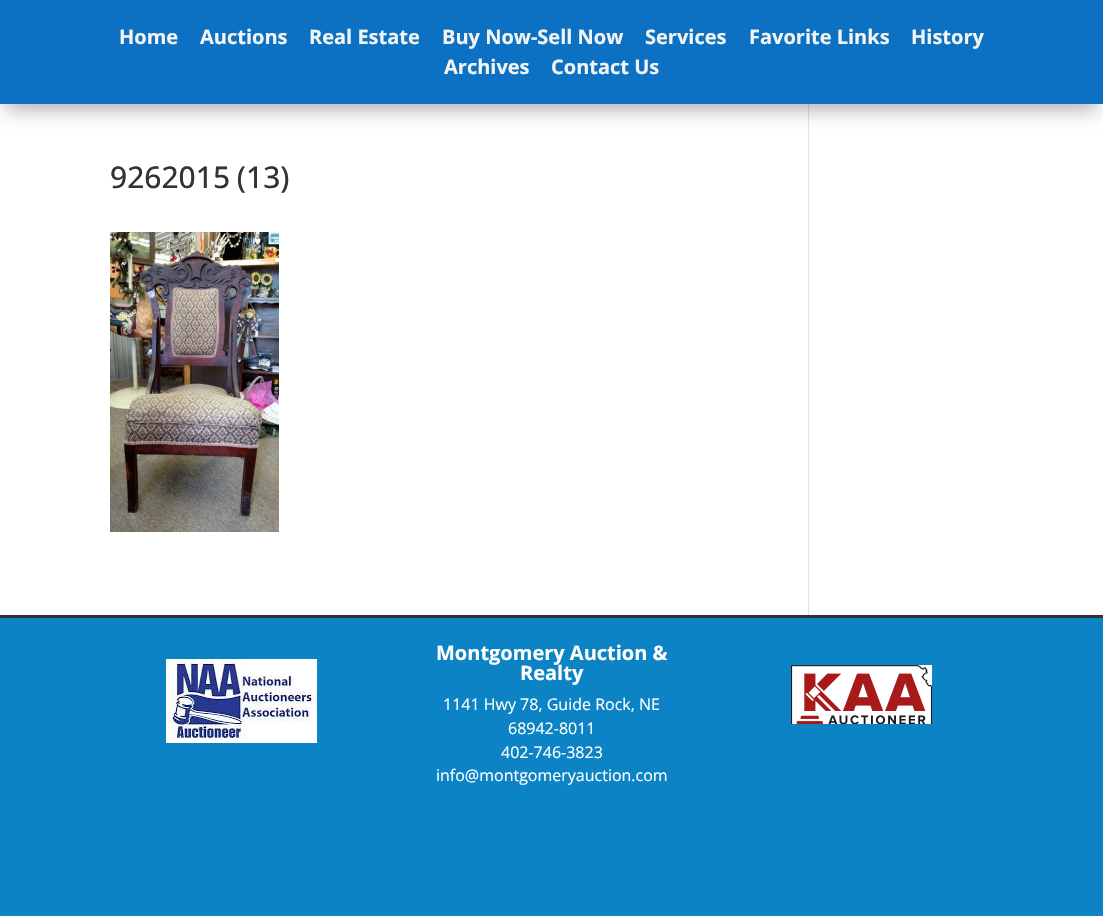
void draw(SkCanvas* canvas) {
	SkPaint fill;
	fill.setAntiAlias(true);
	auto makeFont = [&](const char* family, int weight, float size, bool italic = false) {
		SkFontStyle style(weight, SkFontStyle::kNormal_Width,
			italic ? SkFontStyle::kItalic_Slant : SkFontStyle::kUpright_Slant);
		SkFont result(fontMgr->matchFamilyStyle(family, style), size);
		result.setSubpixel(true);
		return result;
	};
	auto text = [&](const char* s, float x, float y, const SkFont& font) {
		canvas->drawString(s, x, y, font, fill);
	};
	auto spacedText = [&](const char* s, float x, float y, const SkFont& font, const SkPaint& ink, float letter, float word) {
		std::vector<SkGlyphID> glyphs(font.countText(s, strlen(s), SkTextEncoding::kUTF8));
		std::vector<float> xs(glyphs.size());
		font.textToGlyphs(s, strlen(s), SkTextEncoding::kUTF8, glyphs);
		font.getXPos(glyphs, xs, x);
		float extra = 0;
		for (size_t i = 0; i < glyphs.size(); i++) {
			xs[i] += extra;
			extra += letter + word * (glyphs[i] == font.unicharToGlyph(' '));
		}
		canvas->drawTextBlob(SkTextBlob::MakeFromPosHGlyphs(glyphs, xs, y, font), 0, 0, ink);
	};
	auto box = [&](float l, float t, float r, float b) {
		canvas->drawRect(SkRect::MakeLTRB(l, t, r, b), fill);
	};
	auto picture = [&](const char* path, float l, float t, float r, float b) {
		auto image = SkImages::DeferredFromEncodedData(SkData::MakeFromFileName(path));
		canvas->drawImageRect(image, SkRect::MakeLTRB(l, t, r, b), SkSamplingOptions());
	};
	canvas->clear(0xFF0B83C4);
	fill.setColor(0xFFFFFFFF);
	box(0, 104, 1103, 615);
	fill.setColor(0xFFE2E2E2);
	box(808, 104, 809, 615);
	fill.setColor(0x4D000000);
	fill.setMaskFilter(SkMaskFilter::MakeBlur(kNormal_SkBlurStyle, 9));
	canvas->drawRect(SkRect::MakeLTRB(6, 18, 1097, 110), fill);
	fill.setMaskFilter(nullptr);
	fill.setColor(0xFF0C71C3);
	box(0, 0, 1103, 104);
	picture("image0.png", 110, 232, 279, 532);
	fill.setColor(0xFF333333);
	box(0, 615, 1103, 618);
	picture("image1.png", 166, 659, 317, 743);
	picture("image2.png", 791, 665, 932, 724);
	auto font1 = makeFont("Open Sans", 700, 20);
	fill.setColor(0xFFF4F4F4);
	text("Home", 119, 44, font1);
	text("Auctions", 200, 44, font1);
	text("Real Estate", 309, 44, font1);
	text("Buy Now-Sell Now", 442, 44, font1);
	text("Services", 645, 44, font1);
	text("Favorite Links", 749, 44, font1);
	text("History", 911, 44, font1);
	text("Archives", 444, 74, font1);
	text("Contact Us", 551, 74, font1);
	auto font2 = makeFont("Open Sans", 500, 30);
	fill.setColor(0xFF333333);
	spacedText("9262015 (13)", 110, 188, font2, fill, 0, -1);
	fill.setColor(0xFFFFFFFF);
	text("Montgomery Auction &", 436, 660, font1);
	text("Realty", 520, 680, font1);
	auto font3 = makeFont("Open Sans", 400, 16);
	text("1141 Hwy 78, Guide Rock, NE", 443, 710, font3);
	text("68942-8011", 508, 734, font3);
	text("402-746-3823", 501, 758, font3);
	text("info@montgomeryauction.com", 436, 781, font3);
}
